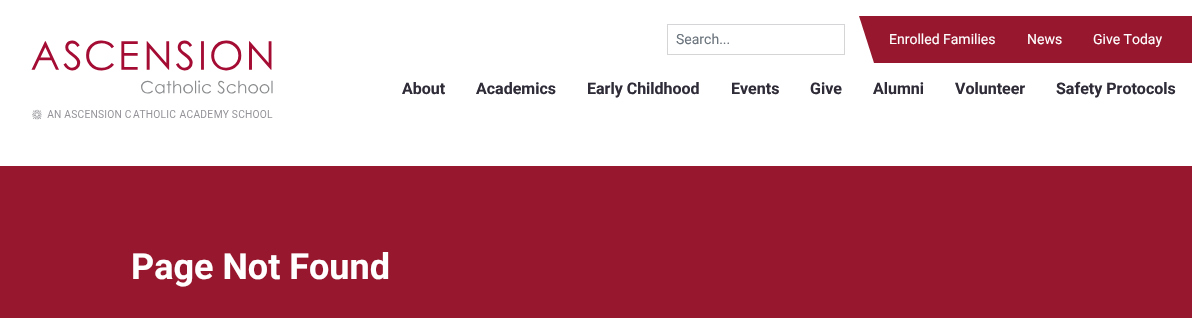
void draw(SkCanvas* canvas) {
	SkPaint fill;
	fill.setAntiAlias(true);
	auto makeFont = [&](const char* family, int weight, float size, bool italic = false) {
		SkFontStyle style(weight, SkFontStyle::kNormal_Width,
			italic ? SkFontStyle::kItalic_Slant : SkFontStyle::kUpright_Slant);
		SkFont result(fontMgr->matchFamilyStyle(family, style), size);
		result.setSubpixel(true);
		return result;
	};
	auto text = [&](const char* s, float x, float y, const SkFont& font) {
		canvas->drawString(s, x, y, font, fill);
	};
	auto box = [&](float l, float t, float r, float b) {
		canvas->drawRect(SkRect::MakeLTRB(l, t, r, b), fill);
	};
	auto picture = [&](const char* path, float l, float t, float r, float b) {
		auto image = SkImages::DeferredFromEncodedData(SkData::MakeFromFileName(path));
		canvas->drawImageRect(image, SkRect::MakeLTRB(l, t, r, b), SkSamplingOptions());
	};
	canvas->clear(0xFFFFFFFF);
	picture("image0.png", 31, 40, 273, 120);
	fill.setStyle(SkPaint::kStroke_Style);
	fill.setStrokeWidth(1);
	fill.setColor(0xFFD5D4D6);
	canvas->drawRect(SkRect::MakeLTRB(667.5f, 24.5f, 844.5f, 54.5f), fill);
	fill.setStyle(SkPaint::kFill_Style);
	fill.setColor(0xFF96172E);
	canvas->drawPath(SkPathBuilder().moveTo(859, 16).lineTo(1012, 16).lineTo(1012, 63).lineTo(874, 63).close().detach(), fill);
	box(1012, 16, 1192, 63);
	canvas->drawPath(SkPathBuilder().moveTo(0, 166).lineTo(0, 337).lineTo(1192, 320).lineTo(1192, 166).close().detach(), fill);
	auto font1 = makeFont("Roboto", 400, 14);
	fill.setColor(0xFF6C757D);
	text("Search...", 676, 44, font1);
	fill.setColor(0xFFFFFFFF);
	text("Enrolled Families", 889, 44, font1);
	text("News", 1027, 44, font1);
	text("Give Today", 1093, 44, font1);
	auto font2 = makeFont("Roboto", 700, 16);
	fill.setColor(0xFF2F2C38);
	text("About", 402, 94, font2);
	text("Academics", 476, 94, font2);
	text("Early Childhood", 587, 94, font2);
	text("Events", 731, 94, font2);
	text("Give", 810, 94, font2);
	text("Alumni", 873, 94, font2);
	text("Volunteer", 955, 94, font2);
	text("Safety Protocols", 1056, 94, font2);
	auto font3 = makeFont("Roboto", 700, 36);
	fill.setColor(0xFFFFFFFF);
	text("Page Not Found", 131, 279, font3);
}
